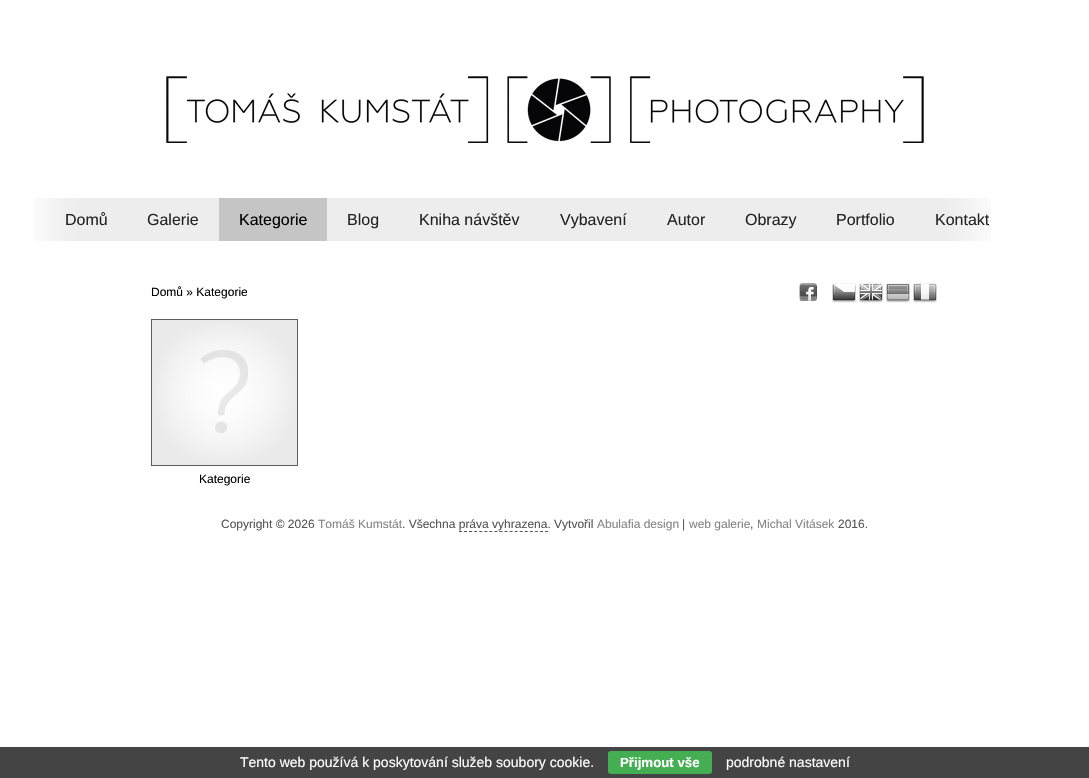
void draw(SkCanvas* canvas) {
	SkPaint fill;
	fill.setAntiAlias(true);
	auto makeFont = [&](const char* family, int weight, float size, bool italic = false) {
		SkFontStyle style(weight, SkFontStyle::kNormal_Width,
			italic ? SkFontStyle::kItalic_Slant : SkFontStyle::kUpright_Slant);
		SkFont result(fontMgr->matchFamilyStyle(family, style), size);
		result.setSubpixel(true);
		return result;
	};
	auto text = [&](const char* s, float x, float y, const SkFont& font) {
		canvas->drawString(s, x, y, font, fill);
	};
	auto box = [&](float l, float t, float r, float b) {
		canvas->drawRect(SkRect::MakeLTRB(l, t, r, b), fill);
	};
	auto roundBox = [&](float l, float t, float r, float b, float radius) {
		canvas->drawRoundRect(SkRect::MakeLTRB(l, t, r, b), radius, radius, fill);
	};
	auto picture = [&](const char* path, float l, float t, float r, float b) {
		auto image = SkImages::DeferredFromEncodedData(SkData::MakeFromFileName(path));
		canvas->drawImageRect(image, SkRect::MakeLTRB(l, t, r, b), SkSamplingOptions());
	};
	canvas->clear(0xFFFFFFFF);
	picture("image0.png", 166, 76, 924, 143);
	picture("image1.png", 34, 198, 991, 241);
	fill.setColor(0xFFC5C5C5);
	box(219, 198, 327, 241);
	fill.setStyle(SkPaint::kStroke_Style);
	fill.setStrokeWidth(1);
	fill.setColor(0xFF5D5D5D);
	canvas->drawRect(SkRect::MakeLTRB(151.5f, 319.5f, 297.5f, 465.5f), fill);
	picture("image2.png", 152, 320, 297, 465);
	picture("image3.png", 799, 283, 817, 301);
	picture("image4.png", 832, 283, 856, 303);
	picture("image5.png", 859, 283, 883, 303);
	picture("image6.png", 886, 283, 910, 303);
	picture("image7.png", 913, 283, 937, 303);
	fill.setColor(0xFF545454);
	fill.setPathEffect(SkDashPathEffect::Make({{3, 2.06f}}, 0));
	canvas->drawPath(SkPathBuilder().moveTo(459, 531.5f).lineTo(548, 531.5f).detach(), fill);
	fill.setPathEffect(nullptr);
	fill.setStyle(SkPaint::kFill_Style);
	fill.setColor(0xFF444444);
	box(0, 747, 1089, 778);
	fill.setColor(0xFF45AE52);
	roundBox(608, 751, 712, 774, 3);
	auto font1 = makeFont("Liberation Sans", 400, 16);
	fill.setColor(0xFF242424);
	text("Domů", 65, 225, font1);
	text("Galerie", 147, 225, font1);
	fill.setColor(0xFF000000);
	text("Kategorie", 239, 225, font1);
	fill.setColor(0xFF242424);
	text("Blog", 347, 225, font1);
	text("Kniha návštěv", 419, 225, font1);
	text("Vybavení", 560, 225, font1);
	text("Autor", 667, 225, font1);
	text("Obrazy", 745, 225, font1);
	text("Portfolio", 836, 225, font1);
	text("Kontakt", 935, 225, font1);
	auto font2 = makeFont("Liberation Sans", 400, 12);
	fill.setColor(0xFF000000);
	text("Domů » Kategorie", 151, 296, font2);
	text("Kategorie", 199, 483, font2);
	fill.setColor(0xFF545454);
	text("Copyright © 2026", 221, 528, font2);
	fill.setColor(0xFF848484);
	text("Tomáš Kumstát", 318, 528, font2);
	fill.setColor(0xFF545454);
	text(". Všechna práva vyhrazena. Vytvořil", 402, 528, font2);
	fill.setColor(0xFF848484);
	text("Abulafia design", 597, 528, font2);
	fill.setColor(0xFF545454);
	text("|", 682, 528, font2);
	fill.setColor(0xFF848484);
	text("web galerie", 689, 528, font2);
	fill.setColor(0xFF545454);
	text(",", 750, 528, font2);
	fill.setColor(0xFF848484);
	text("Michal Vitásek", 757, 528, font2);
	fill.setColor(0xFF545454);
	text("2016.", 838, 528, font2);
	auto font3 = makeFont("Liberation Sans", 400, 14);
	fill.setColor(0xFFFFFFFF);
	text("Tento web používá k poskytování služeb soubory cookie.", 240, 767, font3);
	auto font4 = makeFont("Liberation Sans", 700, 13.25f);
	text("Přijmout vše", 620, 767, font4);
	text("podrobné nastavení", 726, 767, font3);
}
